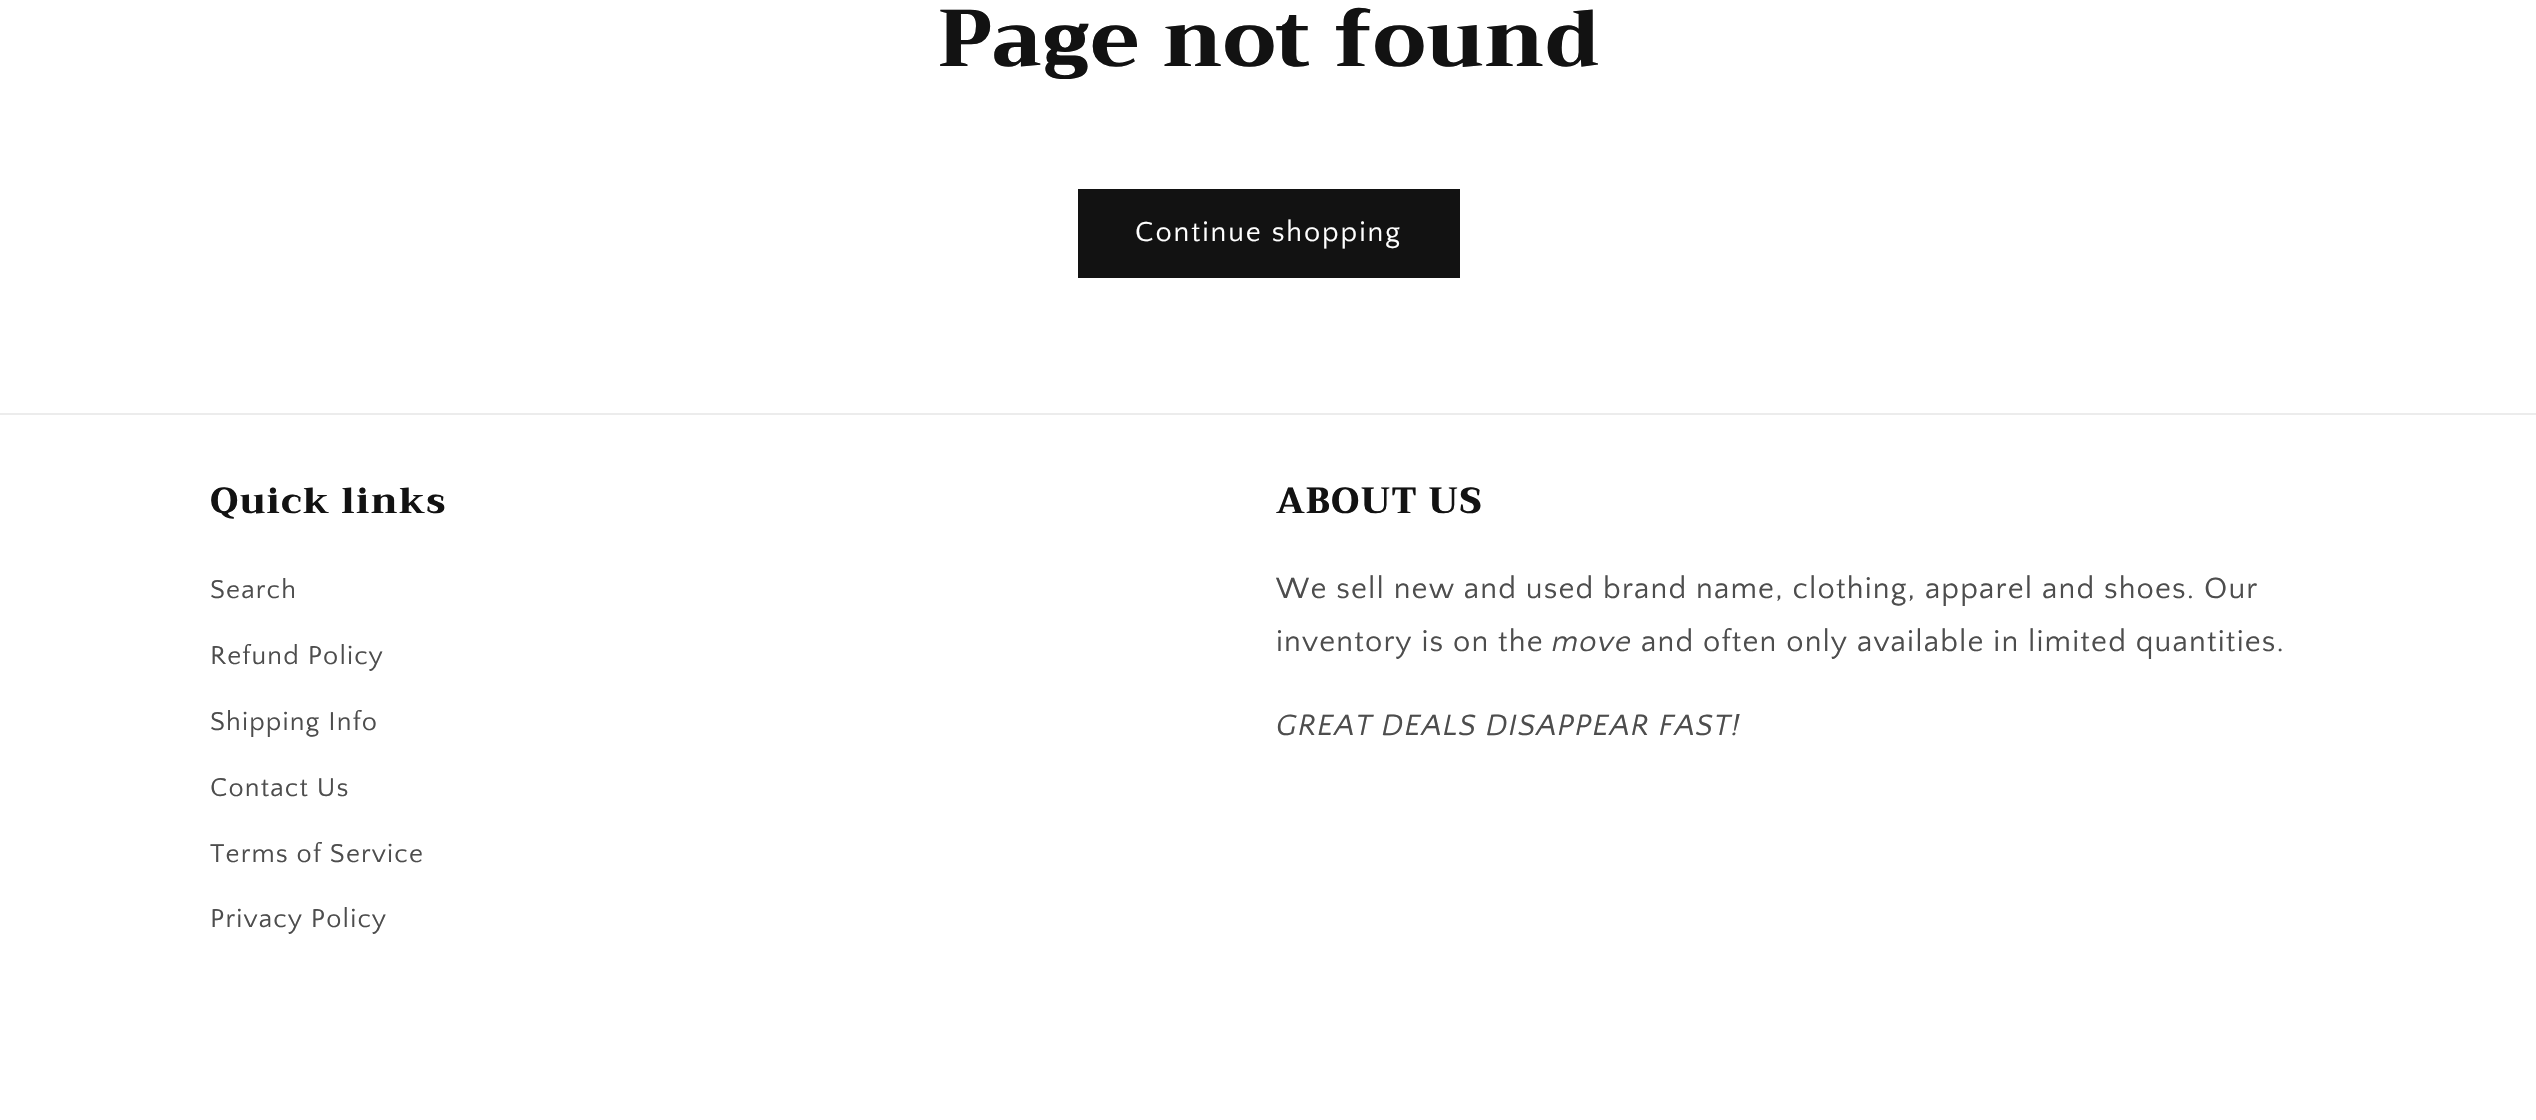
void draw(SkCanvas* canvas) {
	SkPaint fill;
	fill.setAntiAlias(true);
	auto makeFont = [&](const char* family, int weight, float size, bool italic = false) {
		SkFontStyle style(weight, SkFontStyle::kNormal_Width,
			italic ? SkFontStyle::kItalic_Slant : SkFontStyle::kUpright_Slant);
		SkFont result(fontMgr->matchFamilyStyle(family, style), size);
		result.setSubpixel(true);
		return result;
	};
	auto spacedText = [&](const char* s, float x, float y, const SkFont& font, const SkPaint& ink, float letter, float word) {
		std::vector<SkGlyphID> glyphs(font.countText(s, strlen(s), SkTextEncoding::kUTF8));
		std::vector<float> xs(glyphs.size());
		font.textToGlyphs(s, strlen(s), SkTextEncoding::kUTF8, glyphs);
		font.getXPos(glyphs, xs, x);
		float extra = 0;
		for (size_t i = 0; i < glyphs.size(); i++) {
			xs[i] += extra;
			extra += letter + word * (glyphs[i] == font.unicharToGlyph(' '));
		}
		canvas->drawTextBlob(SkTextBlob::MakeFromPosHGlyphs(glyphs, xs, y, font), 0, 0, ink);
	};
	auto box = [&](float l, float t, float r, float b) {
		canvas->drawRect(SkRect::MakeLTRB(l, t, r, b), fill);
	};
	canvas->clear(0xFFFFFFFF);
	fill.setColor(0xFF121212);
	box(1078, 189, 1460, 278);
	fill.setColor(0xFFECECEC);
	box(0, 413, 2536, 415);
	auto font1 = makeFont("Trirong", 800, 80.5f);
	fill.setColor(0xFF121212);
	spacedText("Page not found", 938, 66, font1, fill, 1.25f, 0);
	auto font2 = makeFont("Quattrocento Sans", 400, 28.9f);
	fill.setColor(0xFFFFFFFF);
	spacedText("Continue shopping", 1135, 241, font2, fill, 1.9f, 0);
	auto font3 = makeFont("Trirong", 800, 36.25f);
	fill.setColor(0xFF121212);
	spacedText("Quick links", 210, 513, font3, fill, 1.25f, 0);
	auto font4 = makeFont("Quattrocento Sans", 400, 27);
	fill.setColor(0xFF4D4D4D);
	spacedText("Search", 210, 598, font4, fill, 1.15f, 0);
	spacedText("Refund Policy", 210, 664, font4, fill, 1.15f, 0);
	spacedText("Shipping Info", 210, 730, font4, fill, 1.15f, 0);
	spacedText("Contact Us", 210, 796, font4, fill, 1.15f, 0);
	spacedText("Terms of Service", 210, 862, font4, fill, 1.15f, 0);
	spacedText("Privacy Policy", 210, 927, font4, fill, 1.15f, 0);
	fill.setColor(0xFF121212);
	spacedText("ABOUT US", 1276, 513, font3, fill, 1.25f, 0);
	auto font5 = makeFont("Quattrocento Sans", 400, 30.8f);
	fill.setColor(0xFF4D4D4D);
	spacedText("We sell new and used brand name, clothing, apparel and shoes. Our", 1276, 598, font5, fill, 1.15f, 0);
	spacedText("inventory is on the", 1276, 651, font5, fill, 1.15f, 0);
	auto font6 = makeFont("Quattrocento Sans", 400, 30.8f, true);
	spacedText("move", 1552, 651, font6, fill, 1.15f, 0);
	spacedText("and often only available in limited quantities.", 1641, 651, font5, fill, 1.15f, 0);
	spacedText("GREAT DEALS DISAPPEAR FAST!", 1276, 735, font6, fill, 1.15f, 0);
}
